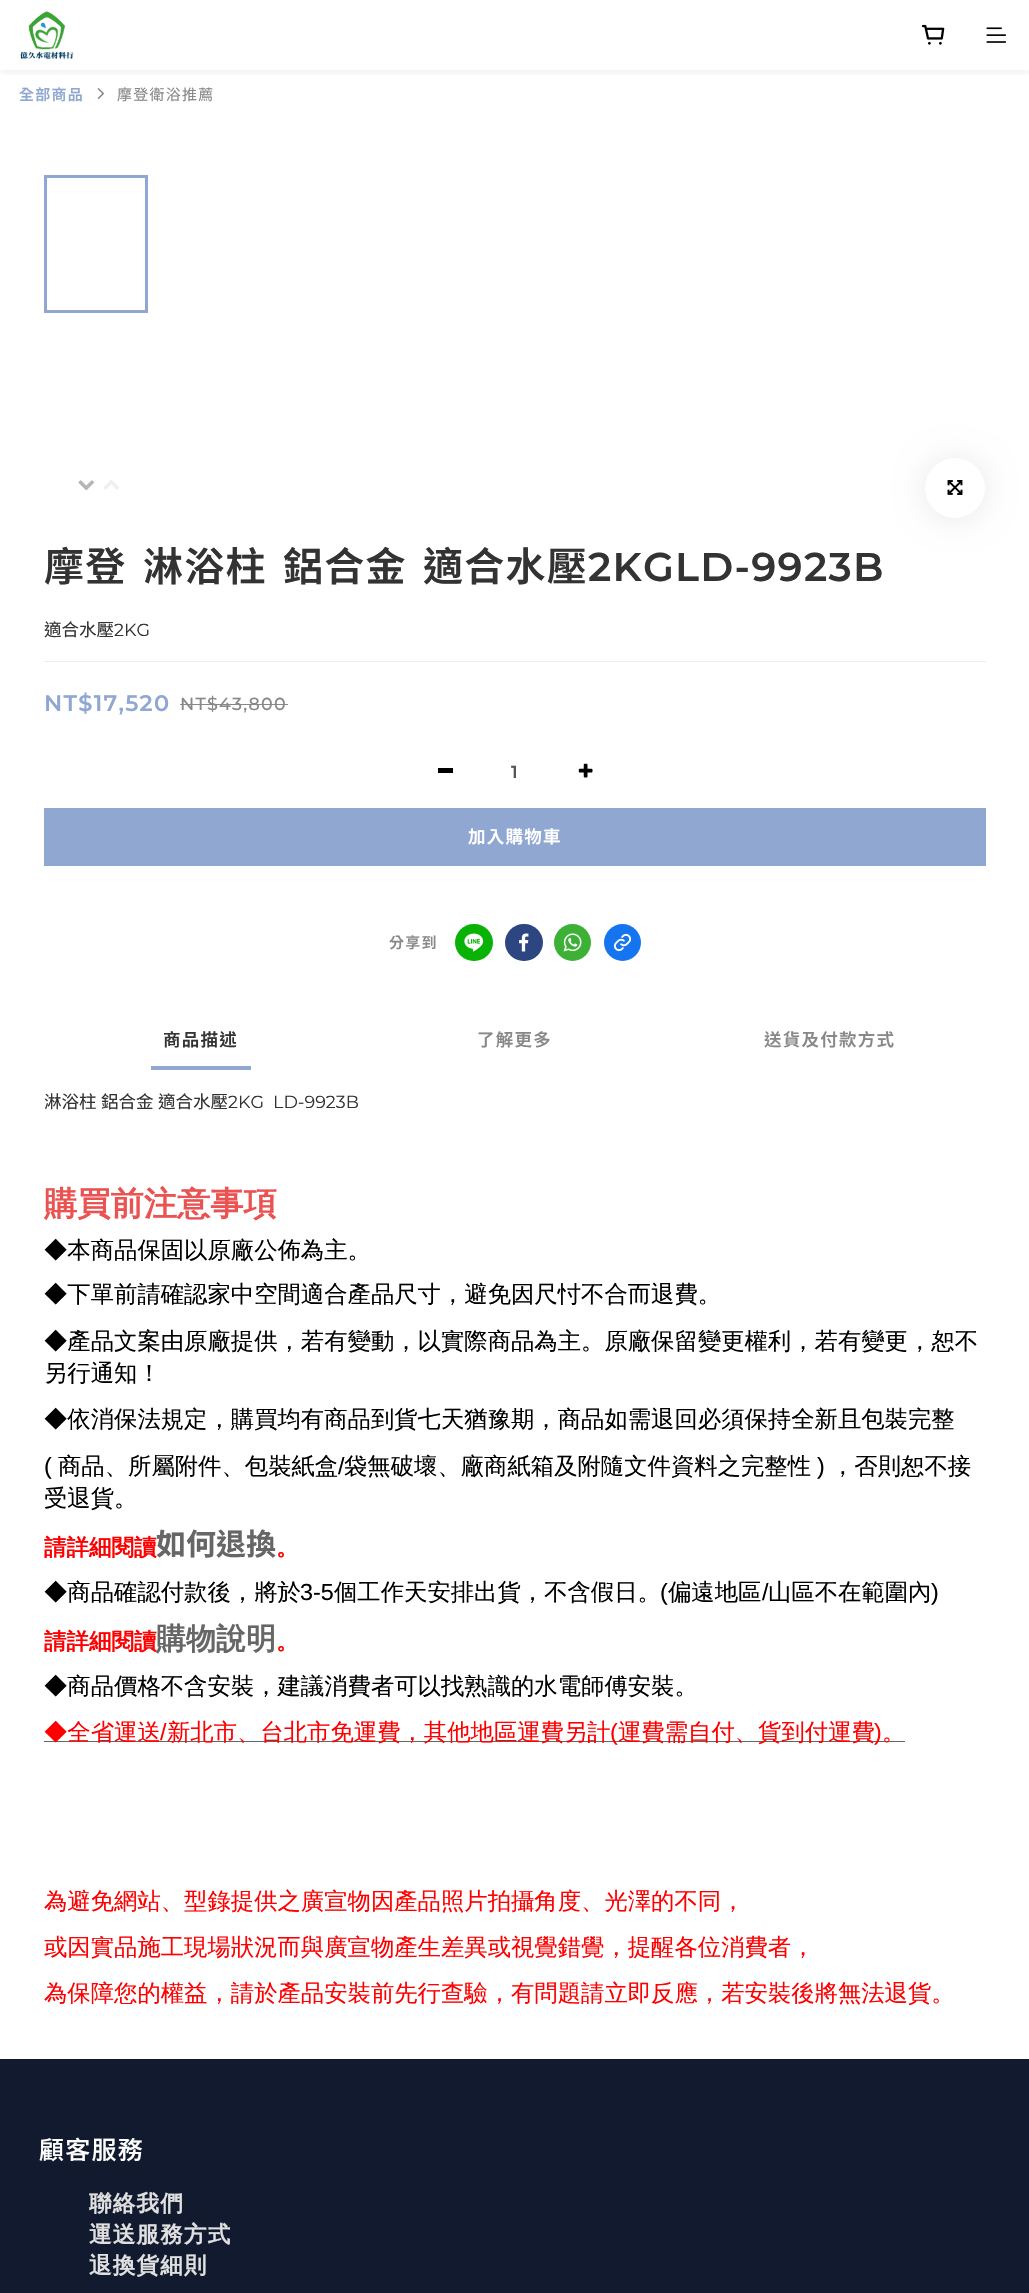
void draw(SkCanvas* canvas) {
	SkPaint fill;
	fill.setAntiAlias(true);
	auto makeFont = [&](const char* family, int weight, float size, bool italic = false) {
		SkFontStyle style(weight, SkFontStyle::kNormal_Width,
			italic ? SkFontStyle::kItalic_Slant : SkFontStyle::kUpright_Slant);
		SkFont result(fontMgr->matchFamilyStyle(family, style), size);
		result.setSubpixel(true);
		return result;
	};
	auto text = [&](const char* s, float x, float y, const SkFont& font) {
		canvas->drawString(s, x, y, font, fill);
	};
	auto spacedText = [&](const char* s, float x, float y, const SkFont& font, const SkPaint& ink, float letter, float word) {
		std::vector<SkGlyphID> glyphs(font.countText(s, strlen(s), SkTextEncoding::kUTF8));
		std::vector<float> xs(glyphs.size());
		font.textToGlyphs(s, strlen(s), SkTextEncoding::kUTF8, glyphs);
		font.getXPos(glyphs, xs, x);
		float extra = 0;
		for (size_t i = 0; i < glyphs.size(); i++) {
			xs[i] += extra;
			extra += letter + word * (glyphs[i] == font.unicharToGlyph(' '));
		}
		canvas->drawTextBlob(SkTextBlob::MakeFromPosHGlyphs(glyphs, xs, y, font), 0, 0, ink);
	};
	auto box = [&](float l, float t, float r, float b) {
		canvas->drawRect(SkRect::MakeLTRB(l, t, r, b), fill);
	};
	auto roundBox = [&](float l, float t, float r, float b, float radius) {
		canvas->drawRoundRect(SkRect::MakeLTRB(l, t, r, b), radius, radius, fill);
	};
	auto picture = [&](const char* path, float l, float t, float r, float b) {
		auto image = SkImages::DeferredFromEncodedData(SkData::MakeFromFileName(path));
		canvas->drawImageRect(image, SkRect::MakeLTRB(l, t, r, b), SkSamplingOptions());
	};
	canvas->clear(0xFFFFFFFF);
	canvas->save();
	canvas->clipRect(SkRect::MakeLTRB(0, 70, 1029, 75));
	fill.setColor(0x0F000000);
	fill.setMaskFilter(SkMaskFilter::MakeBlur(kNormal_SkBlurStyle, 4));
	canvas->drawRect(SkRect::MakeLTRB(0, 3, 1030, 73), fill);
	fill.setMaskFilter(nullptr);
	canvas->restore();
	picture("image0.png", 20, 11, 74, 60);
	picture("image1.png", 922, 24, 945, 45);
	picture("image2.png", 986, 27, 1006, 43);
	picture("image3.png", 97, 88, 105, 100);
	fill.setStyle(SkPaint::kStroke_Style);
	fill.setStrokeWidth(3);
	fill.setColor(0xFF90A7D1);
	canvas->drawRect(SkRect::MakeLTRB(45.5f, 176.5f, 146.5f, 311.5f), fill);
	picture("image4.png", 78, 480, 94, 491);
	picture("image5.png", 103, 480, 119, 490);
	fill.setStyle(SkPaint::kFill_Style);
	fill.setColor(0x17000000);
	fill.setMaskFilter(SkMaskFilter::MakeBlur(kNormal_SkBlurStyle, 15));
	canvas->drawRoundRect(SkRect::MakeLTRB(925, 459, 985, 519), 30, 30, fill);
	fill.setMaskFilter(nullptr);
	fill.setColor(0xFFFFFFFF);
	canvas->drawCircle(955, 488, 30, fill);
	picture("image6.png", 947, 480, 963, 495);
	fill.setColor(0xFFEEEEEE);
	box(44, 661, 986, 662);
	fill.setColor(0xFF888888);
	box(180, 704, 288, 705);
	fill.setColor(0xFF000000);
	box(438, 768, 453, 773);
	picture("image7.png", 578, 763, 593, 778);
	fill.setColor(0xFF90A7D1);
	box(44, 808, 986, 866);
	fill.setColor(0xFF09B305);
	roundBox(455, 924, 493, 961, 18.5f);
	picture("image8.png", 464, 933, 484, 952);
	fill.setColor(0xFF2D4682);
	roundBox(505, 924, 543, 961, 18.5f);
	picture("image9.png", 519, 933, 529, 952);
	fill.setColor(0xFF3CB136);
	canvas->drawCircle(572.5f, 942.5f, 18.5f, fill);
	picture("image10.png", 563, 933, 582, 952);
	fill.setColor(0xFF1575F0);
	canvas->drawCircle(622.5f, 942.5f, 18.5f, fill);
	picture("image11.png", 613, 933, 632, 952);
	fill.setColor(0xFF90A7D1);
	box(151, 1066, 251, 1070);
	fill.setColor(0xFF666666);
	box(44, 1741, 905, 1742);
	fill.setColor(0xFF121A2F);
	box(0, 2059, 1029, 2293);
	auto font1 = makeFont("Noto Sans TC", 600, 15);
	fill.setColor(0xFF90A7D1);
	spacedText("全部商品", 19, 100, font1, fill, 1.25f, 0);
	auto font2 = makeFont("Noto Sans TC", 400, 15);
	fill.setColor(0xFF888888);
	spacedText("摩登衛浴推薦", 117, 100, font2, fill, 1.25f, 0);
	auto font3 = makeFont("Noto Sans TC", 600, 40);
	fill.setColor(0xFF333333);
	spacedText("摩登", 44, 581, font3, fill, 1.25f, 0);
	spacedText("淋浴柱", 143, 581, font3, fill, 1.25f, 0);
	spacedText("鋁合金", 283, 581, font3, fill, 1.25f, 0);
	spacedText("適合水壓", 423, 581, font3, fill, 1.25f, 0);
	auto font4 = makeFont("Montserrat", 600, 40);
	spacedText("2KGLD-9923B", 588, 581, font4, fill, 1.25f, 0);
	auto font5 = makeFont("Noto Sans TC", 400, 17.5f);
	text("適合水壓", 44, 636, font5);
	auto font6 = makeFont("Montserrat", 400, 17.5f);
	text("2KG", 114, 636, font6);
	auto font7 = makeFont("Montserrat", 600, 22.5f);
	fill.setColor(0xFF90A7D1);
	spacedText("NT$17,520", 44, 711, font7, fill, 1.25f, 0);
	auto font8 = makeFont("Montserrat", 500, 17.5f);
	fill.setColor(0xFF888888);
	spacedText("NT$43,800", 180, 710, font8, fill, 1.25f, 0);
	auto font9 = makeFont("Montserrat", 600, 17.5f);
	fill.setColor(0xFF555555);
	spacedText("1", 511, 778, font9, fill, 1.25f, 0);
	auto font10 = makeFont("Noto Sans TC", 600, 17.5f);
	fill.setColor(0xFFFFFFFF);
	spacedText("加入購物車", 468, 843, font10, fill, 1.25f, 0);
	fill.setColor(0xFF888888);
	spacedText("分享到", 389, 948, font1, fill, 1.25f, 0);
	fill.setColor(0xFF333333);
	spacedText("商品描述", 163, 1046, font10, fill, 1.25f, 0);
	fill.setColor(0xFF888888);
	spacedText("了解更多", 477, 1046, font10, fill, 1.25f, 0);
	spacedText("送貨及付款方式", 764, 1046, font10, fill, 1.25f, 0);
	fill.setColor(0xFF333333);
	text("淋浴柱", 44, 1108, font5);
	text("鋁合金", 101, 1108, font5);
	text("適合水壓", 158, 1108, font5);
	text("2KG  LD-9923B", 228, 1108, font6);
	auto font11 = makeFont("WenQuanYi Zen Hei", 700, 33.25f);
	fill.setColor(0xFFEB5252);
	text("購買前注意事項", 44, 1215, font11);
	auto font12 = makeFont("WenQuanYi Zen Hei", 500, 23.35f);
	fill.setColor(0xFF000000);
	text("◆本商品保固以原廠公佈為主。", 44, 1258, font12);
	text("◆下單前請確認家中空間適合產品尺寸，避免因尺忖不合而退費。", 44, 1302, font12);
	text("◆產品文案由原廠提供，若有變動，以實際商品為主。原廠保留變更權利，若有變更，恕不", 44, 1349, font12);
	text("另行通知！", 44, 1381, font12);
	text("◆依消保法規定，購買均有商品到貨七天猶豫期，商品如需退回必須保持全新且包裝完整", 44, 1427, font12);
	auto font13 = makeFont("Liberation Sans", 400, 23.35f);
	text("(", 44, 1474, font13);
	text("商品、所屬附件、包裝紙盒", 58, 1474, font12);
	text("/", 338, 1474, font13);
	text("袋無破壞、廠商紙箱及附隨文件資料之完整性", 344, 1474, font12);
	text(")", 817, 1474, font13);
	text("，否則恕不接", 831, 1474, font12);
	text("受退貨。", 44, 1506, font12);
	auto font14 = makeFont("WenQuanYi Zen Hei", 700, 22.5f);
	fill.setColor(0xFFFF0000);
	text("請詳細閱讀", 44, 1555, font14);
	auto font15 = makeFont("Noto Sans TC", 700, 30);
	fill.setColor(0xFF666666);
	text("如何退換", 156, 1555, font15);
	fill.setColor(0xFFFF0000);
	text("。", 276, 1555, font14);
	fill.setColor(0xFF000000);
	text("◆商品確認付款後，將於", 44, 1600, font12);
	text("3-5", 300, 1600, font13);
	text("個工作天安排出貨，不含假日。", 334, 1600, font12);
	text("(", 660, 1600, font13);
	text("偏遠地區", 668, 1600, font12);
	text("/", 762, 1600, font13);
	text("山區不在範圍內", 768, 1600, font12);
	text(")", 931, 1600, font13);
	fill.setColor(0xFFFF0000);
	text("請詳細閱讀", 44, 1649, font14);
	auto font16 = makeFont("WenQuanYi Zen Hei", 700, 30);
	fill.setColor(0xFF666666);
	text("購物說明", 156, 1649, font16);
	fill.setColor(0xFFFF0000);
	text("。", 276, 1649, font14);
	fill.setColor(0xFF000000);
	text("◆商品價格不含安裝，建議消費者可以找熟識的水電師傅安裝。", 44, 1694, font12);
	fill.setColor(0xFFFF0000);
	text("◆全省運送", 44, 1740, font12);
	text("/", 160, 1740, font13);
	text("新北市、台北市免運費，其他地區運費另計", 167, 1740, font12);
	text("(", 610, 1740, font13);
	text("運費需自付、貨到付運費", 618, 1740, font12);
	text(")", 874, 1740, font13);
	text("。", 882, 1740, font12);
	text("為避免網站、型錄提供之廣宣物因產品照片拍攝角度、光澤的不同，", 44, 1909, font12);
	text("或因實品施工現場狀況而與廣宣物產生差異或視覺錯覺，提醒各位消費者，", 44, 1955, font12);
	text("為保障您的權益，請於產品安裝前先行查驗，有問題請立即反應，若安裝後將無法退貨。", 44, 2001, font12);
	auto font17 = makeFont("Noto Sans TC", 500, 25);
	fill.setColor(0xFFFFFFFF);
	spacedText("顧客服務", 39, 2159, font17, fill, 1.25f, 0);
	fill.setColor(0xFFE0E0E0);
	spacedText("聯絡我們", 89, 2211, font14, fill, 1.25f, 0);
	spacedText("運送服務方式", 89, 2242, font14, fill, 1.25f, 0);
	spacedText("退換貨細則", 89, 2273, font14, fill, 1.25f, 0);
}
